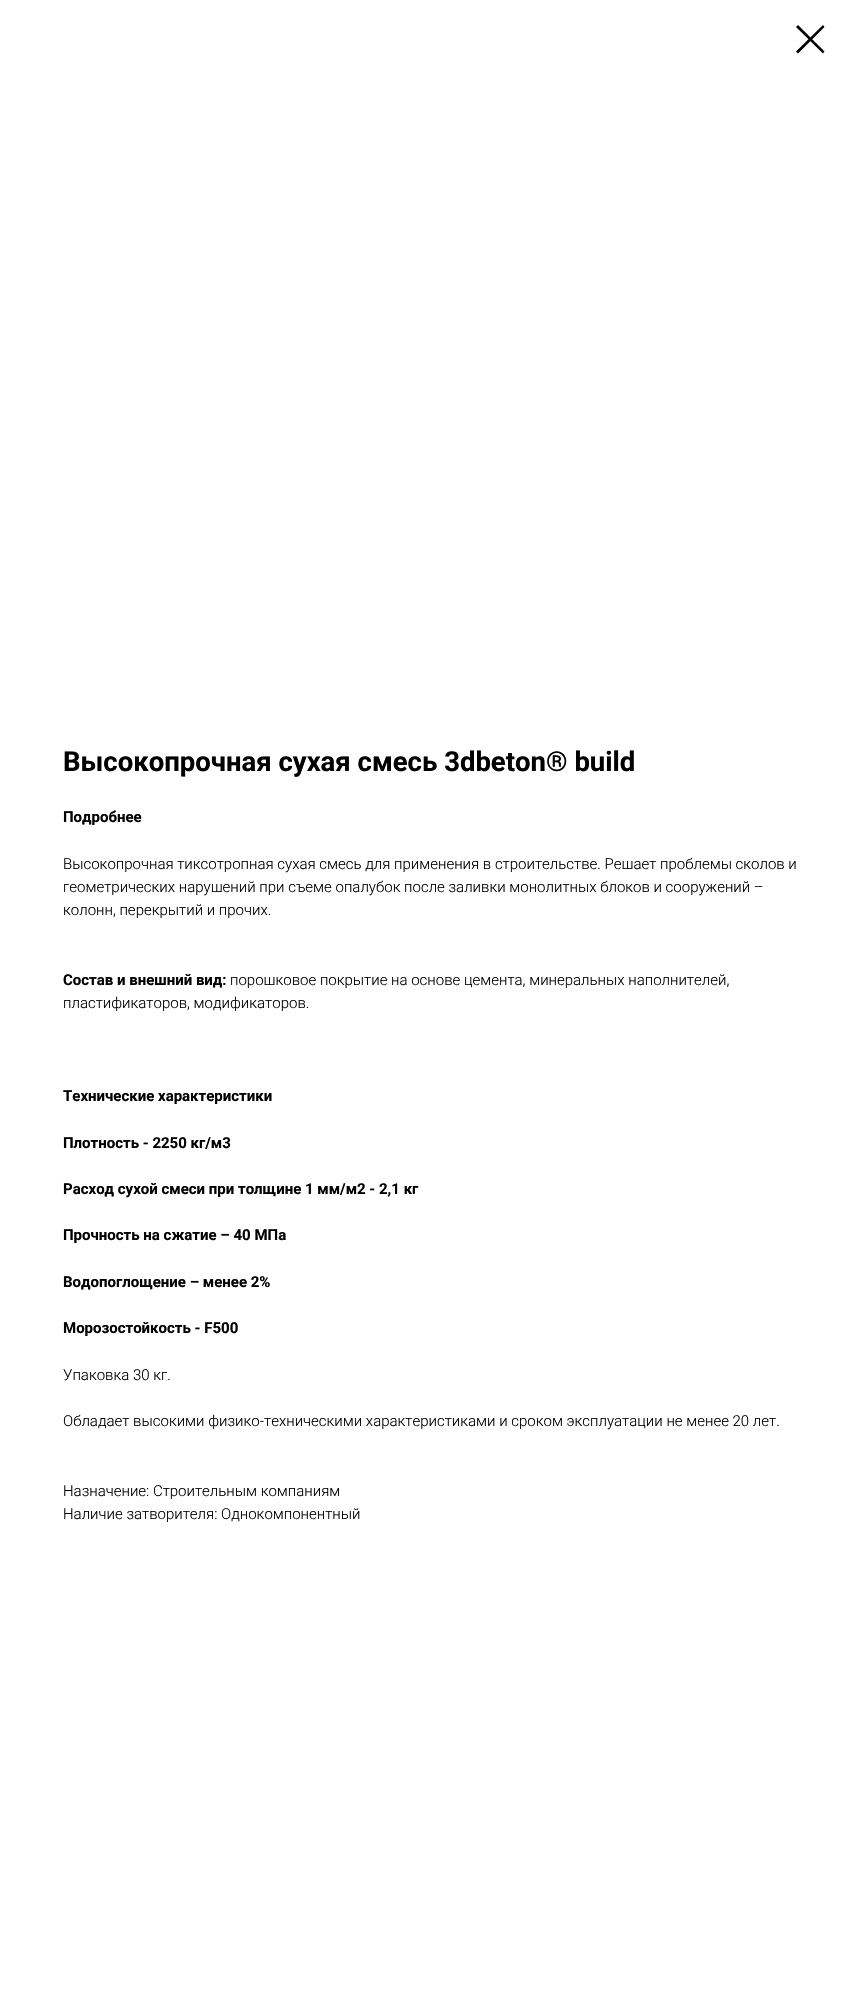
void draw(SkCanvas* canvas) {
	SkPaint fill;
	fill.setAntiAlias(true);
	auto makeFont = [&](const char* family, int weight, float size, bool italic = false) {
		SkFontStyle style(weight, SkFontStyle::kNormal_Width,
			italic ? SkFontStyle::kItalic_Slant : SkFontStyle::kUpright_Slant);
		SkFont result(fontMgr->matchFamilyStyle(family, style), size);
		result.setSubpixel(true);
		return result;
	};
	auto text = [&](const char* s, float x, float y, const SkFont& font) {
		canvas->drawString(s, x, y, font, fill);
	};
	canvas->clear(0xFFFFFFFF);
	fill.setColor(0xFF000000);
	canvas->drawPath(SkPathBuilder(SkPathFillType::kEvenOdd).moveTo(796, 27).lineTo(798, 25).lineTo(824.5f, 51.5f).lineTo(823, 53.5f).close().detach(), fill);
	canvas->drawPath(SkPathBuilder(SkPathFillType::kEvenOdd).moveTo(823, 25).lineTo(824.5f, 27).lineTo(798, 53.5f).lineTo(796, 51.5f).close().detach(), fill);
	auto font1 = makeFont("Roboto", 700, 27.5f);
	text("Высокопрочная сухая смесь 3dbeton® build", 63, 771, font1);
	auto font2 = makeFont("Roboto", 700, 15);
	text("Подробнее", 63, 822, font2);
	auto font3 = makeFont("Roboto", 300, 15);
	text("Высокопрочная тиксотропная сухая смесь для применения в строительстве. Решает проблемы сколов и", 63, 869, font3);
	text("геометрических нарушений при съеме опалубок после заливки монолитных блоков и сооружений –", 63, 892, font3);
	text("колонн, перекрытий и прочих.", 63, 915, font3);
	text("Состав и внешний вид:", 63, 985, font2);
	text("порошковое покрытие на основе цемента, минеральных наполнителей,", 230, 985, font3);
	text("пластификаторов, модификаторов.", 63, 1008, font3);
	text("Технические характеристики", 63, 1101, font2);
	text("Плотность - 2250 кг/м3", 63, 1148, font2);
	text("Расход сухой смеси при толщине 1 мм/м2 - 2,1 кг", 63, 1194, font2);
	text("Прочность на сжатие – 40 МПа", 63, 1240, font2);
	text("Водопоглощение – менее 2%", 63, 1287, font2);
	text("Морозостойкость - F500", 63, 1333, font2);
	text("Упаковка 30 кг.", 63, 1380, font3);
	text("Обладает высокими физико-техническими характеристиками и сроком эксплуатации не менее 20 лет.", 63, 1426, font3);
	text("Назначение: Строительным компаниям", 63, 1496, font3);
	text("Наличие затворителя: Однокомпонентный", 63, 1519, font3);
}
